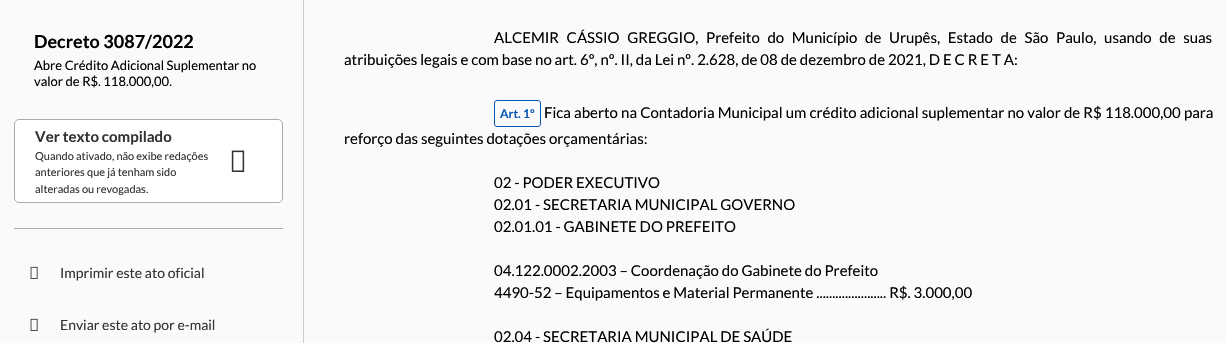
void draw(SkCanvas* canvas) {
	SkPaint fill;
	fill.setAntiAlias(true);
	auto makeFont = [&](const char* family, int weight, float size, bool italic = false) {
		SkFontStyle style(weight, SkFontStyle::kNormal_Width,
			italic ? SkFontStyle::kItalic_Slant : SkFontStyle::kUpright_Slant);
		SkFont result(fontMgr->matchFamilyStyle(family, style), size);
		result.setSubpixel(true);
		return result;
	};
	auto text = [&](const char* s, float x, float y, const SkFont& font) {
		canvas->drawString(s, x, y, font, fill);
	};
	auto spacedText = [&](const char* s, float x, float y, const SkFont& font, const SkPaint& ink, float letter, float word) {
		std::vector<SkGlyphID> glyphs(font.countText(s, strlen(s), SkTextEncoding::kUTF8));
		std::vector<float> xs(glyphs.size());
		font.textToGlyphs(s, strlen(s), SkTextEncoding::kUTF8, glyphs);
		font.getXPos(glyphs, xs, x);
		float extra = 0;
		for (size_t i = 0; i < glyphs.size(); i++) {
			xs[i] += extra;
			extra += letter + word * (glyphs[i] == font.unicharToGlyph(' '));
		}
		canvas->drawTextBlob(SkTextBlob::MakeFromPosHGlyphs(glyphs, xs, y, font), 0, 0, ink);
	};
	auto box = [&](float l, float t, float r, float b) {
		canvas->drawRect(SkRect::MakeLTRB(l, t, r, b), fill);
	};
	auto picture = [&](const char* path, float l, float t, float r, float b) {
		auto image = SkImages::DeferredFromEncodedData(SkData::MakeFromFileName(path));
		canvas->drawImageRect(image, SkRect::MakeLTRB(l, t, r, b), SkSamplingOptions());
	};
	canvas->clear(0xFFFAFAFC);
	fill.setColor(0xFFCCCCCC);
	box(303, 0, 304, 343);
	fill.setColor(0xFFAAAAAA);
	box(14, 228, 283, 229);
	fill.setColor(0xFFFFFFFF);
	canvas->drawRoundRect(SkRect::MakeLTRB(14.5f, 119.5f, 282.5f, 202.5f), 4.5f, 4.5f, fill);
	fill.setStyle(SkPaint::kStroke_Style);
	fill.setStrokeWidth(1);
	fill.setColor(0xFFAAAAAA);
	canvas->drawRoundRect(SkRect::MakeLTRB(14.5f, 119.5f, 282.5f, 202.5f), 4.5f, 4.5f, fill);
	picture("image0.png", 231, 150, 245, 172);
	picture("image1.png", 30, 266, 38, 279);
	picture("image1.png", 30, 318, 38, 331);
	fill.setColor(0xFF0A57B3);
	canvas->drawRoundRect(SkRect::MakeLTRB(494.5f, 100.5f, 540.5f, 126.5f), 2.5f, 2.5f, fill);
	auto font1 = makeFont("Lato", 700, 18);
	fill.setStyle(SkPaint::kFill_Style);
	fill.setColor(0xFF000000);
	text("Decreto 3087/2022", 34, 48, font1);
	auto font2 = makeFont("Lato", 400, 13);
	text("Abre Crédito Adicional Suplementar no", 34, 70, font2);
	text("valor de R$. 118.000,00.", 34, 86, font2);
	auto font3 = makeFont("Lato", 700, 15);
	fill.setColor(0xFF333333);
	text("Ver texto compilado", 35, 142, font3);
	auto font4 = makeFont("Lato", 400, 11);
	text("Quando ativado, não exibe redações", 35, 160, font4);
	text("anteriores que já tenham sido", 35, 176, font4);
	text("alteradas ou revogadas.", 35, 193, font4);
	auto font5 = makeFont("Lato", 400, 14);
	text("Imprimir este ato oficial", 60, 278, font5);
	text("Enviar este ato por e-mail", 60, 330, font5);
	auto font6 = makeFont("Lato", 400, 15);
	fill.setColor(0xFF000000);
	spacedText("ALCEMIR CÁSSIO GREGGIO, Prefeito do Município de Urupês, Estado de São Paulo, usando de suas", 494, 43, font6, fill, 0, 4.75f);
	text("atribuições legais e com base no art. 6º, nº. II, da Lei nº. 2.628, de 08 de dezembro de 2021, D E C R E T A:", 344, 65, font6);
	auto font7 = makeFont("Lato", 700, 12);
	fill.setColor(0xFF0A57B3);
	text("Art. 1º", 500, 118, font7);
	fill.setColor(0xFF000000);
	spacedText("Fica aberto na Contadoria Municipal um crédito adicional suplementar no valor de R$ 118.000,00 para", 544, 118, font6, fill, 0, 0.25f);
	text("reforço das seguintes dotações orçamentárias:", 344, 144, font6);
	text("02 - PODER EXECUTIVO", 494, 188, font6);
	text("02.01 - SECRETARIA MUNICIPAL GOVERNO", 494, 210, font6);
	text("02.01.01 - GABINETE DO PREFEITO", 494, 232, font6);
	text("04.122.0002.2003 – Coordenação do Gabinete do Prefeito", 494, 276, font6);
	text("4490-52 – Equipamentos e Material Permanente ...................... R$. 3.000,00", 494, 298, font6);
	text("02.04 - SECRETARIA MUNICIPAL DE SAÚDE", 494, 342, font6);
}
